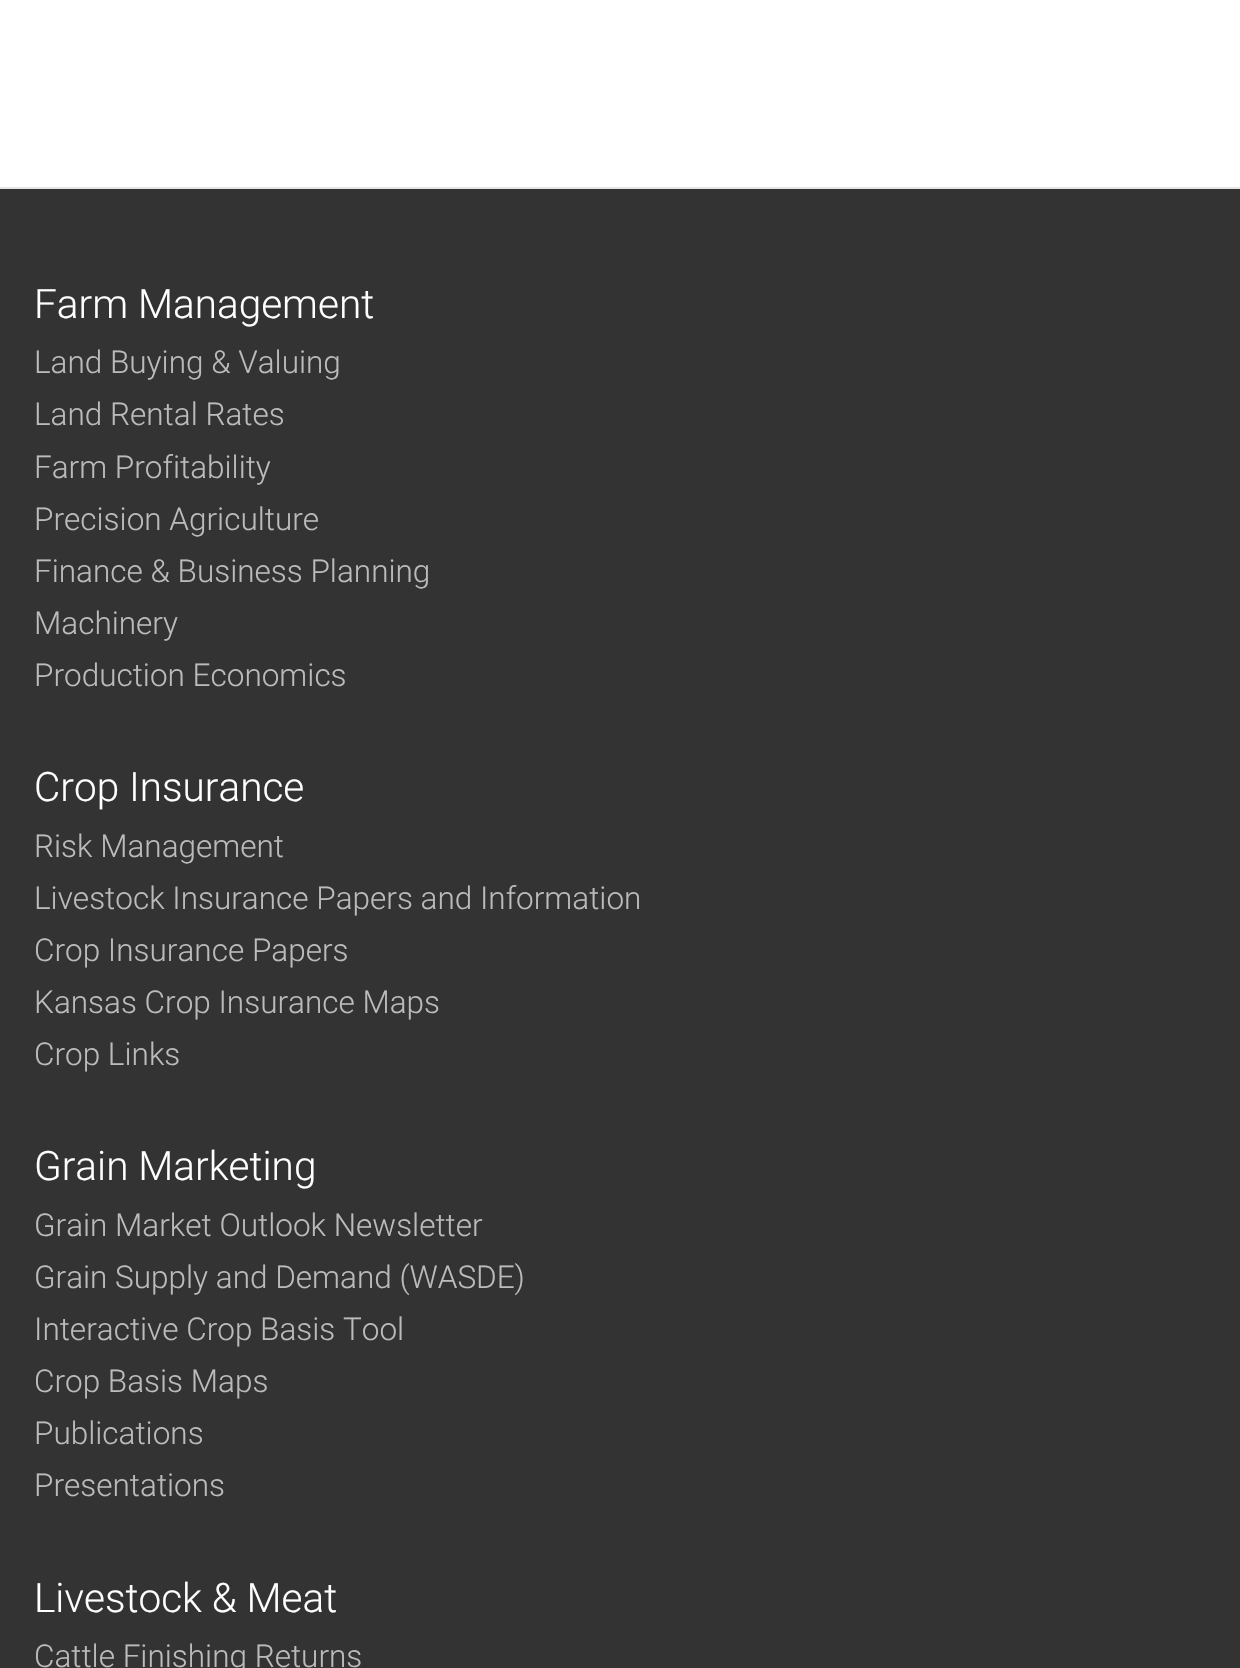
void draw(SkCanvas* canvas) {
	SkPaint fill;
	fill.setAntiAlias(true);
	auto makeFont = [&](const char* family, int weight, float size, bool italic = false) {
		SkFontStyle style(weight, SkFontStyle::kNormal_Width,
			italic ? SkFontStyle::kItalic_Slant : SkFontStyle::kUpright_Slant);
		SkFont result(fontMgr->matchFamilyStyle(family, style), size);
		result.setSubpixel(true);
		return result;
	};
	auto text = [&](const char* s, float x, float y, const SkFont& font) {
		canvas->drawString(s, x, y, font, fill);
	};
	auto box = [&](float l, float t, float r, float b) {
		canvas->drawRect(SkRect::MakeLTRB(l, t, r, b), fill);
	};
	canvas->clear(0xFFFFFFFF);
	fill.setColor(0xFF333333);
	box(0, 189, 1240, 1668);
	fill.setColor(0xFFE5E5E5);
	box(0, 187, 1240, 189);
	auto font1 = makeFont("Roboto", 300, 40.5f);
	fill.setColor(0xFFFFFFFF);
	text("Farm Management", 34, 318, font1);
	auto font2 = makeFont("Roboto", 300, 31.5f);
	fill.setColor(0xFFBBBBBB);
	text("Land Buying & Valuing", 34, 373, font2);
	text("Land Rental Rates", 34, 425, font2);
	text("Farm Profitability", 34, 478, font2);
	text("Precision Agriculture", 34, 530, font2);
	text("Finance & Business Planning", 34, 582, font2);
	text("Machinery", 34, 634, font2);
	text("Production Economics", 34, 686, font2);
	fill.setColor(0xFFFFFFFF);
	text("Crop Insurance", 34, 801, font1);
	fill.setColor(0xFFBBBBBB);
	text("Risk Management", 34, 857, font2);
	text("Livestock Insurance Papers and Information", 34, 909, font2);
	text("Crop Insurance Papers", 34, 961, font2);
	text("Kansas Crop Insurance Maps", 34, 1013, font2);
	text("Crop Links", 34, 1065, font2);
	fill.setColor(0xFFFFFFFF);
	text("Grain Marketing", 34, 1180, font1);
	fill.setColor(0xFFBBBBBB);
	text("Grain Market Outlook Newsletter", 34, 1236, font2);
	text("Grain Supply and Demand (WASDE)", 34, 1288, font2);
	text("Interactive Crop Basis Tool", 34, 1340, font2);
	text("Crop Basis Maps", 34, 1392, font2);
	text("Publications", 34, 1444, font2);
	text("Presentations", 34, 1496, font2);
	fill.setColor(0xFFFFFFFF);
	text("Livestock & Meat", 34, 1612, font1);
	fill.setColor(0xFFBBBBBB);
	text("Cattle Finishing Returns", 34, 1667, font2);
}
